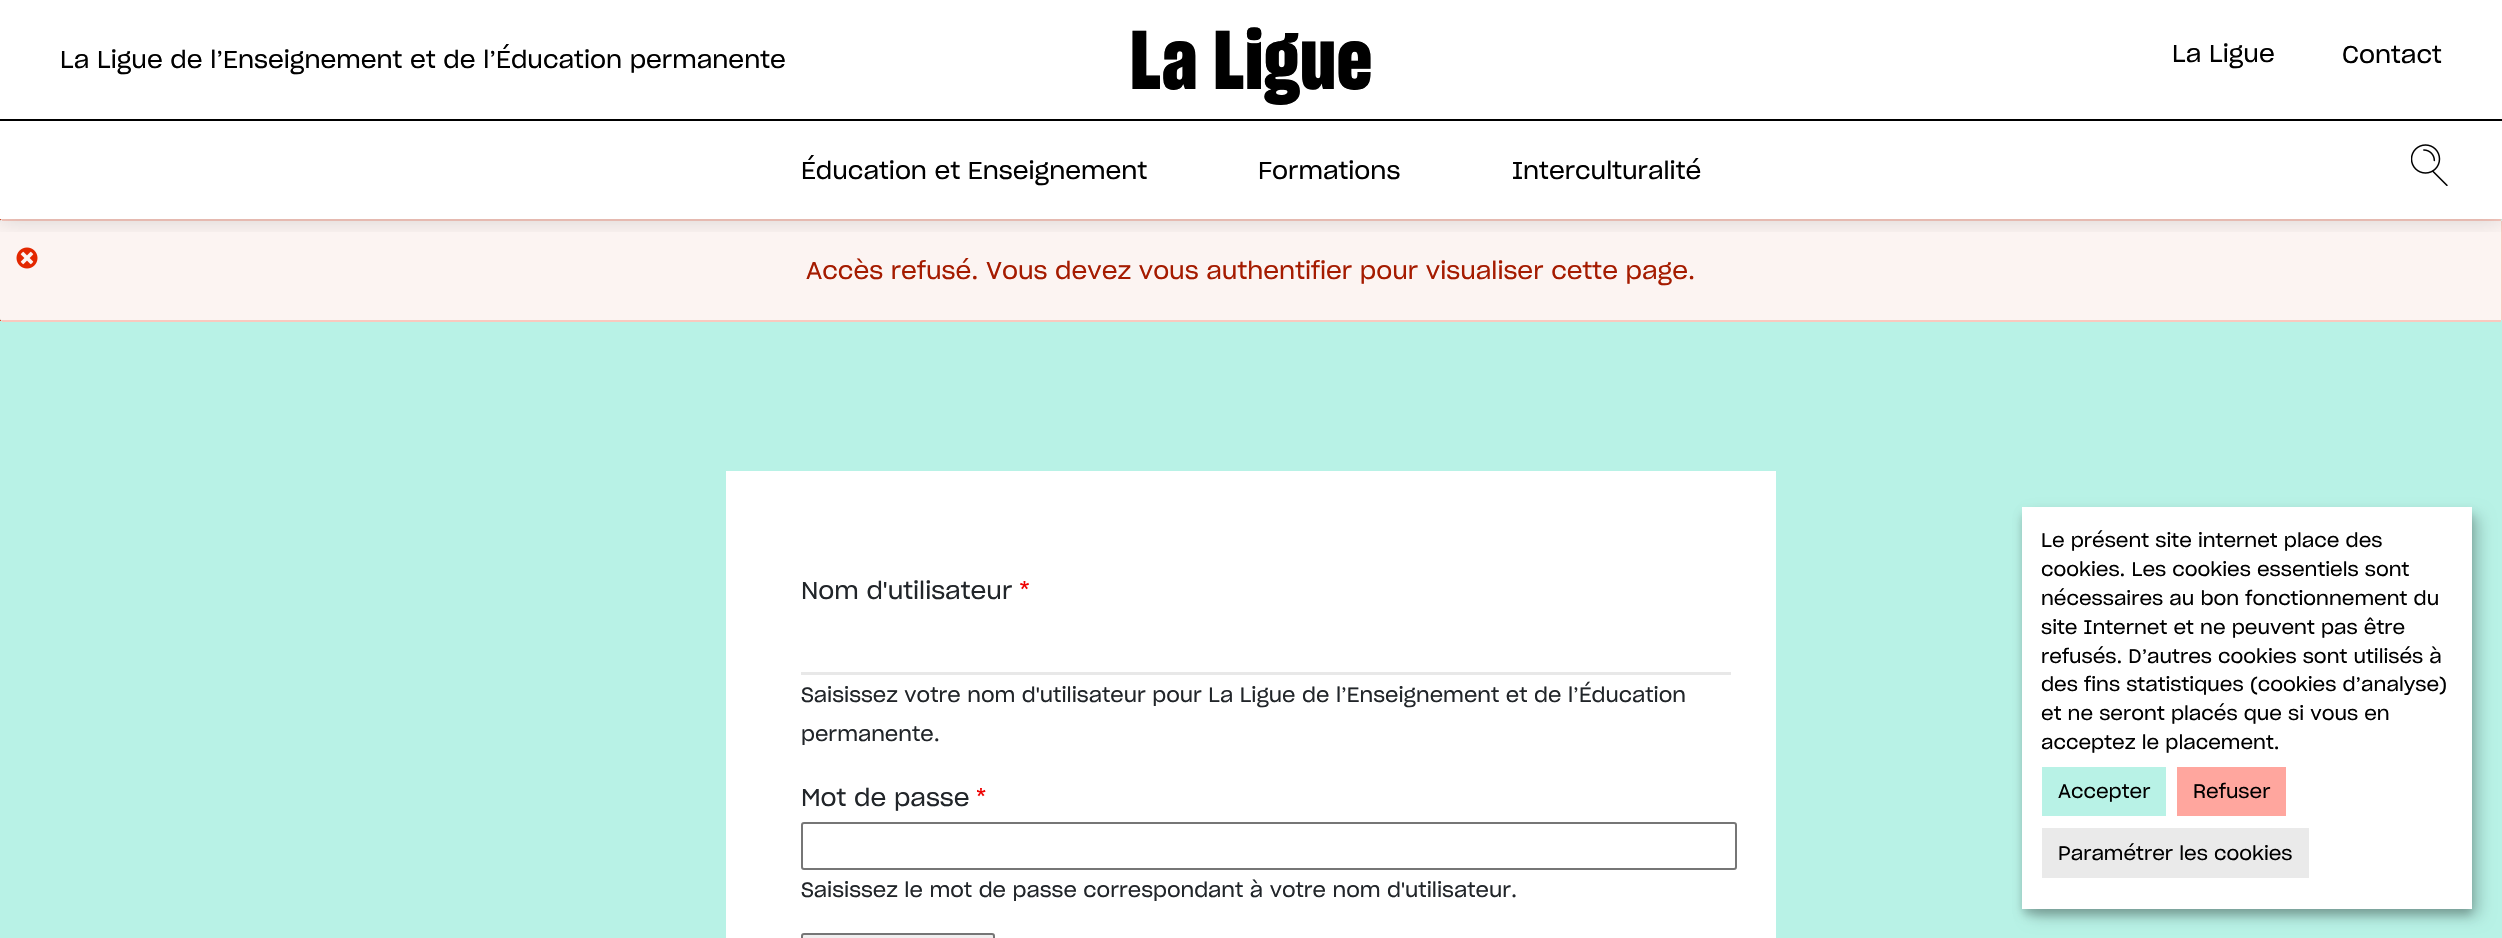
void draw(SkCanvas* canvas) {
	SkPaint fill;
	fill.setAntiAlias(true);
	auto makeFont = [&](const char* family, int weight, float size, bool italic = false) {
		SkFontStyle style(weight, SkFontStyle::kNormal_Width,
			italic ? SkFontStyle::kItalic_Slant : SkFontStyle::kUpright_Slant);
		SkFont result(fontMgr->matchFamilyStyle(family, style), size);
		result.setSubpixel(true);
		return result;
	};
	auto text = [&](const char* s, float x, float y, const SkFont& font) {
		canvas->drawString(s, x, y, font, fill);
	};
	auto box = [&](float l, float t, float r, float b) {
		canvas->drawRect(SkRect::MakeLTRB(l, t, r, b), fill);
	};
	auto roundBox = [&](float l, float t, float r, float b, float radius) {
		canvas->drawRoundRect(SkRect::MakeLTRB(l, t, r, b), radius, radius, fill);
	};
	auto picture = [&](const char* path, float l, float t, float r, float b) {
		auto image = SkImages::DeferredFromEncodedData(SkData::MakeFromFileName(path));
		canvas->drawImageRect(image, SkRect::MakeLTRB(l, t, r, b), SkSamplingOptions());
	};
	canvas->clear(0xFFB8F2E6);
	fill.setColor(0xFFFFFFFF);
	box(0, 0, 2502, 219);
	fill.setColor(0xFFE62600);
	canvas->drawPath(SkPathBuilder().moveTo(-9, 219).cubicTo(-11, 219, -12, 220, -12, 222).lineTo(-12, 318).cubicTo(-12, 320, -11, 321, -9, 321).lineTo(3, 321).cubicTo(1, 321, 0, 320, 0, 318).lineTo(0, 222).cubicTo(0, 220, 1, 219, 3, 219).close().detach(), fill);
	fill.setColor(0xFFFCF4F2);
	roundBox(0, 219, 2502, 321, 3);
	picture("image1.png", 16, 247, 38, 269);
	fill.setColor(0xFFF9C9BF);
	box(2, 219, 2501, 221);
	box(2501, 221, 2502, 320);
	canvas->save();
	canvas->clipRect(SkRect::MakeLTRB(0, 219, 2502, 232));
	fill.setColor(0x29000000);
	fill.setMaskFilter(SkMaskFilter::MakeBlur(kNormal_SkBlurStyle, 11));
	canvas->drawRect(SkRect::MakeLTRB(0, 0, 2502, 219), fill);
	fill.setMaskFilter(nullptr);
	canvas->restore();
	fill.setColor(0xFF000000);
	box(0, 119, 2502, 121);
	picture("image0.png", 2411, 144, 2448, 186);
	fill.setColor(0xFFF9C9BF);
	box(2, 320, 2501, 322);
	fill.setColor(0xFFFFFFFF);
	box(726, 471, 1776, 938);
	picture("image2.png", 1020, 581, 1029, 590);
	fill.setColor(0xFFE8E8E8);
	box(801, 672, 1731, 675);
	picture("image3.png", 977, 788, 986, 797);
	fill.setStyle(SkPaint::kStroke_Style);
	fill.setStrokeWidth(2);
	fill.setColor(0xFF767676);
	canvas->drawRoundRect(SkRect::MakeLTRB(802, 823, 1736, 869), 2, 2, fill);
	fill.setStyle(SkPaint::kFill_Style);
	fill.setColor(0xFFEFEFEF);
	canvas->drawRoundRect(SkRect::MakeLTRB(802, 934, 994, 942), 2, 2, fill);
	fill.setStyle(SkPaint::kStroke_Style);
	fill.setColor(0xFF767676);
	canvas->drawRoundRect(SkRect::MakeLTRB(802, 934, 994, 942), 2, 2, fill);
	fill.setStyle(SkPaint::kFill_Style);
	fill.setColor(0x30000000);
	fill.setMaskFilter(SkMaskFilter::MakeBlur(kNormal_SkBlurStyle, 7.5f));
	canvas->drawRoundRect(SkRect::MakeLTRB(2030, 515, 2480, 917), 6, 6, fill);
	fill.setMaskFilter(nullptr);
	fill.setColor(0x33000000);
	fill.setMaskFilter(SkMaskFilter::MakeBlur(kNormal_SkBlurStyle, 4.5f));
	canvas->drawRoundRect(SkRect::MakeLTRB(2022, 513, 2472, 915), 6, 6, fill);
	fill.setMaskFilter(nullptr);
	fill.setColor(0xFFFFFFFF);
	box(2022, 507, 2472, 909);
	fill.setColor(0xFFB8F2E6);
	box(2042, 767, 2166, 816);
	fill.setColor(0xFFFFA69E);
	box(2177, 767, 2286, 816);
	fill.setColor(0xFFEAEAEA);
	box(2042, 828, 2309, 878);
	auto font1 = makeFont("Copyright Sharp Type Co", 700, 81);
	fill.setColor(0xFF000000);
	text("La Ligue", 1130, 89, font1);
	auto font2 = makeFont("Copyright Sharp Type Co", 400, 24);
	text("La Ligue de l’Enseignement et de l’Éducation permanente", 60, 68, font2);
	text("Éducation et Enseignement", 801, 179, font2);
	text("Formations", 1258, 179, font2);
	text("Interculturalité", 1512, 179, font2);
	text("La Ligue", 2172, 62, font2);
	text("Contact", 2342, 63, font2);
	fill.setColor(0xFFA51B00);
	text("Accès refusé. Vous devez vous authentifier pour visualiser cette page.", 806, 279, font2);
	fill.setColor(0xFF212529);
	text("Nom d'utilisateur", 801, 599, font2);
	auto font3 = makeFont("Copyright Sharp Type Co", 400, 20.4f);
	text("Saisissez votre nom d'utilisateur pour La Ligue de l’Enseignement et de l’Éducation", 801, 702, font3);
	text("permanente.", 801, 741, font3);
	text("Mot de passe", 801, 806, font2);
	text("Saisissez le mot de passe correspondant à votre nom d'utilisateur.", 801, 897, font3);
	auto font4 = makeFont("Copyright Sharp Type Co", 400, 19.2f);
	fill.setColor(0xFF000000);
	text("Le présent site internet place des", 2041, 547, font4);
	text("cookies. Les cookies essentiels sont", 2041, 576, font4);
	text("nécessaires au bon fonctionnement du", 2041, 605, font4);
	text("site Internet et ne peuvent pas être", 2041, 634, font4);
	text("refusés. D’autres cookies sont utilisés à", 2041, 663, font4);
	text("des fins statistiques (cookies d’analyse)", 2041, 691, font4);
	text("et ne seront placés que si vous en", 2041, 720, font4);
	text("acceptez le placement.", 2041, 749, font4);
	text("Accepter", 2058, 798, font4);
	text("Refuser", 2193, 798, font4);
	text("Paramétrer les cookies", 2058, 860, font4);
}
